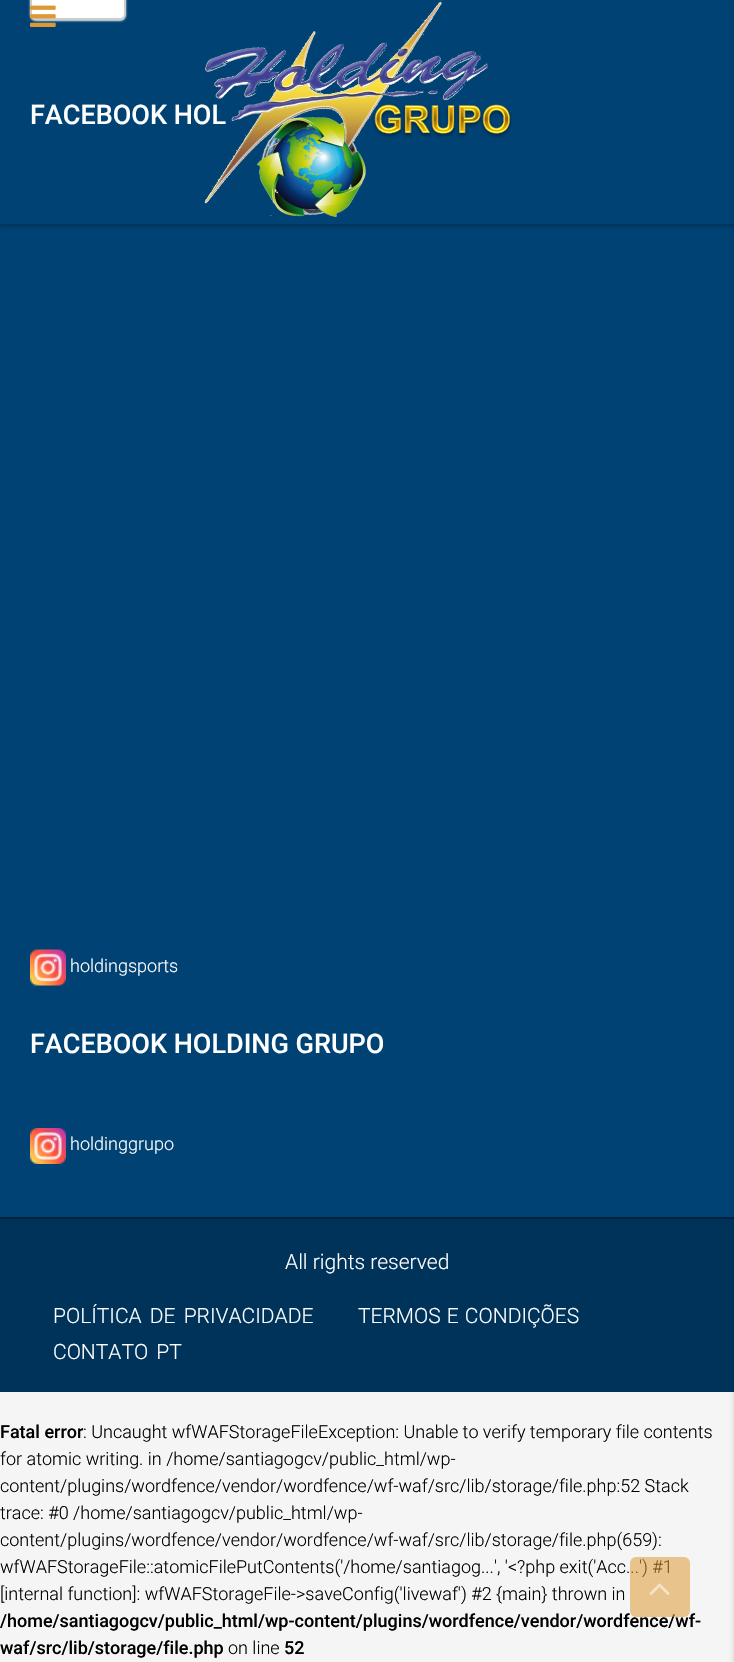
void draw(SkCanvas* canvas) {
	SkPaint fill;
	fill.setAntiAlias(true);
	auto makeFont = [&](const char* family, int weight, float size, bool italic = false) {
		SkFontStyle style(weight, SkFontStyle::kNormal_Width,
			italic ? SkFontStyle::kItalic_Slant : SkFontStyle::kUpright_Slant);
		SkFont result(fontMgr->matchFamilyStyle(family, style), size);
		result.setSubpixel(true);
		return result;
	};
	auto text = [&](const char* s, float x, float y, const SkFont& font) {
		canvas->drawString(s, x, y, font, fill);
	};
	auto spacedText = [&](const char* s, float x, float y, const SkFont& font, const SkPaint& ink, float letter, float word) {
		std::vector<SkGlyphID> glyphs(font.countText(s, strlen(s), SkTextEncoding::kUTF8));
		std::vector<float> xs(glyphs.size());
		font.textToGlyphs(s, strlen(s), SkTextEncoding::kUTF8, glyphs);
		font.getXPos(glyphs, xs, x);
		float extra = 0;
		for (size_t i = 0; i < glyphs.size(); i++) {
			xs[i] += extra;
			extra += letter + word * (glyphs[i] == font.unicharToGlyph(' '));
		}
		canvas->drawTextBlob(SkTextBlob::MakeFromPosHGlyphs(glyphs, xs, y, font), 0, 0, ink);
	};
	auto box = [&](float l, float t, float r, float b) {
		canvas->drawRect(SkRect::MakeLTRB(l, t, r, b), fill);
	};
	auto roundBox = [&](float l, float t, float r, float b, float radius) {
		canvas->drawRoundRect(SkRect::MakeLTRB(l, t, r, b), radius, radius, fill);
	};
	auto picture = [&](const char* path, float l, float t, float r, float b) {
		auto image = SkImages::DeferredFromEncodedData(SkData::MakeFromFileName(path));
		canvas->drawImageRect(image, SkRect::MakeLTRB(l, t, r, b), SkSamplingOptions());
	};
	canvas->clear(0xFFF5F5F5);
	fill.setColor(0xFF004274);
	box(0, 0, 734, 1217);
	fill.setColor(0xFFEEEEEE);
	fill.setMaskFilter(SkMaskFilter::MakeBlur(kNormal_SkBlurStyle, 1));
	canvas->drawRoundRect(SkRect::MakeLTRB(30, -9, 126, 21), 6, 6, fill);
	fill.setMaskFilter(nullptr);
	fill.setColor(0xFFFFFFFF);
	canvas->drawRoundRect(SkRect::MakeLTRB(31, -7, 125, 19), 5, 5, fill);
	fill.setStyle(SkPaint::kStroke_Style);
	fill.setStrokeWidth(2);
	fill.setColor(0xFFCCCCCC);
	canvas->drawRoundRect(SkRect::MakeLTRB(31, -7, 125, 19), 5, 5, fill);
	canvas->save();
	canvas->clipPath(SkPathBuilder(SkPathFillType::kEvenOdd).moveTo(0, 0).lineTo(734, 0).lineTo(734, 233).lineTo(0, 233).close().moveTo(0, 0).lineTo(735, 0).lineTo(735, 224).lineTo(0, 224).close().detach(), true);
	fill.setStyle(SkPaint::kFill_Style);
	fill.setColor(0x33000000);
	fill.setMaskFilter(SkMaskFilter::MakeBlur(kNormal_SkBlurStyle, 1.5f));
	canvas->drawRect(SkRect::MakeLTRB(0, 3, 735, 227), fill);
	fill.setMaskFilter(nullptr);
	canvas->restore();
	picture("image0.png", 30, 5, 56, 27);
	picture("image2.png", 30, 949, 66, 986);
	picture("image3.png", 30, 1128, 66, 1164);
	fill.setColor(0xFF00335A);
	box(0, 1219, 734, 1392);
	fill.setColor(0xFF00243F);
	box(0, 1217, 734, 1219);
	fill.setColor(0x33000000);
	fill.setMaskFilter(SkMaskFilter::MakeBlur(kNormal_SkBlurStyle, 3));
	canvas->drawRect(SkRect::MakeLTRB(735, 3, 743, 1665), fill);
	fill.setMaskFilter(nullptr);
	auto font1 = makeFont("Roboto", 500, 27);
	fill.setColor(0xFFFFFFFF);
	text("FACEBOOK HOL", 30, 124, font1);
	picture("image1.png", 204, 0, 513, 218);
	auto font2 = makeFont("Roboto", 300, 18);
	text("holdingsports", 70, 972, font2);
	text("FACEBOOK HOLDING GRUPO", 30, 1053, font1);
	text("holdinggrupo", 70, 1150, font2);
	auto font3 = makeFont("Roboto", 300, 21);
	text("All rights reserved", 285, 1269, font3);
	spacedText("POLÍTICA DE PRIVACIDADE", 53, 1323, font3, fill, 0, 3);
	spacedText("TERMOS E CONDIÇÕES", 358, 1323, font3, fill, 0, 1);
	spacedText("CONTATO PT", 53, 1359, font3, fill, 0, 3);
	auto font4 = makeFont("Roboto", 500, 18);
	fill.setColor(0xFF000000);
	text("Fatal error", 0, 1438, font4);
	text(": Uncaught wfWAFStorageFileException: Unable to verify temporary file contents", 83, 1438, font2);
	text("for atomic writing. in /home/santiagogcv/public_html/wp-", 0, 1465, font2);
	text("content/plugins/wordfence/vendor/wordfence/wf-waf/src/lib/storage/file.php:52 Stack", 0, 1492, font2);
	text("trace: #0 /home/santiagogcv/public_html/wp-", 0, 1519, font2);
	text("content/plugins/wordfence/vendor/wordfence/wf-waf/src/lib/storage/file.php(659):", 0, 1546, font2);
	text("wfWAFStorageFile::atomicFilePutContents('/home/santiagog...', '<?php exit('Acc...') #1", 0, 1573, font2);
	text("[internal function]: wfWAFStorageFile->saveConfig('livewaf') #2 {main} thrown in", 0, 1600, font2);
	text("/home/santiagogcv/public_html/wp-content/plugins/wordfence/vendor/wordfence/wf-", 0, 1627, font4);
	fill.setColor(0x8ADD9933);
	roundBox(630, 1557, 690, 1617, 6);
	picture("image4.png", 649, 1583, 670, 1595);
	fill.setColor(0xFF000000);
	text("waf/src/lib/storage/file.php", 0, 1654, font4);
	text("on line", 228, 1654, font2);
	text("52", 284, 1654, font4);
}
